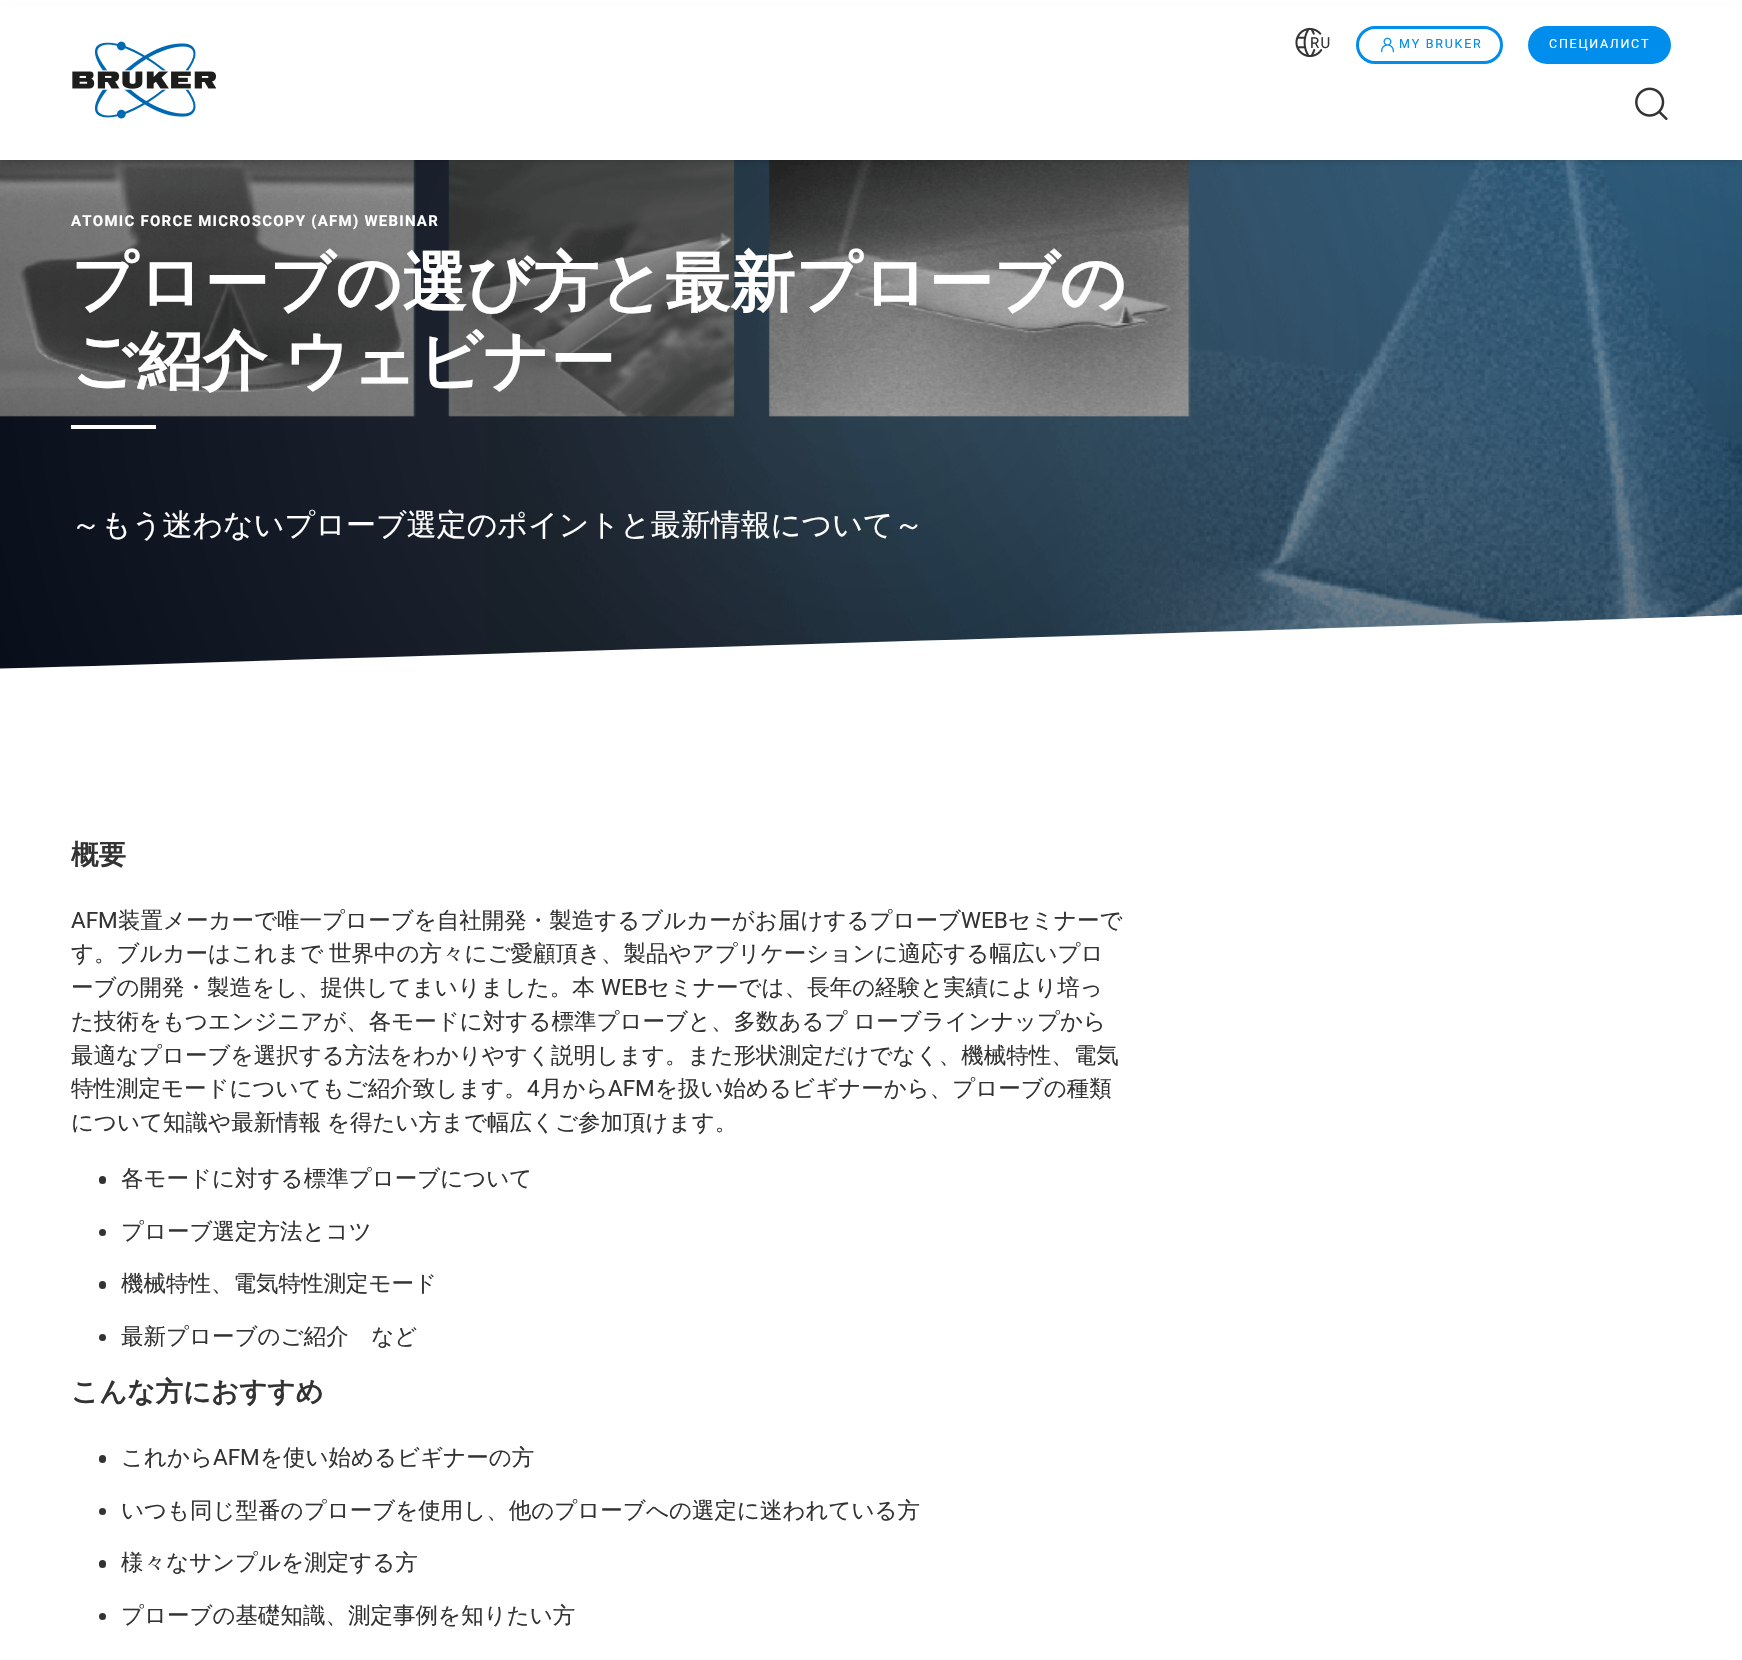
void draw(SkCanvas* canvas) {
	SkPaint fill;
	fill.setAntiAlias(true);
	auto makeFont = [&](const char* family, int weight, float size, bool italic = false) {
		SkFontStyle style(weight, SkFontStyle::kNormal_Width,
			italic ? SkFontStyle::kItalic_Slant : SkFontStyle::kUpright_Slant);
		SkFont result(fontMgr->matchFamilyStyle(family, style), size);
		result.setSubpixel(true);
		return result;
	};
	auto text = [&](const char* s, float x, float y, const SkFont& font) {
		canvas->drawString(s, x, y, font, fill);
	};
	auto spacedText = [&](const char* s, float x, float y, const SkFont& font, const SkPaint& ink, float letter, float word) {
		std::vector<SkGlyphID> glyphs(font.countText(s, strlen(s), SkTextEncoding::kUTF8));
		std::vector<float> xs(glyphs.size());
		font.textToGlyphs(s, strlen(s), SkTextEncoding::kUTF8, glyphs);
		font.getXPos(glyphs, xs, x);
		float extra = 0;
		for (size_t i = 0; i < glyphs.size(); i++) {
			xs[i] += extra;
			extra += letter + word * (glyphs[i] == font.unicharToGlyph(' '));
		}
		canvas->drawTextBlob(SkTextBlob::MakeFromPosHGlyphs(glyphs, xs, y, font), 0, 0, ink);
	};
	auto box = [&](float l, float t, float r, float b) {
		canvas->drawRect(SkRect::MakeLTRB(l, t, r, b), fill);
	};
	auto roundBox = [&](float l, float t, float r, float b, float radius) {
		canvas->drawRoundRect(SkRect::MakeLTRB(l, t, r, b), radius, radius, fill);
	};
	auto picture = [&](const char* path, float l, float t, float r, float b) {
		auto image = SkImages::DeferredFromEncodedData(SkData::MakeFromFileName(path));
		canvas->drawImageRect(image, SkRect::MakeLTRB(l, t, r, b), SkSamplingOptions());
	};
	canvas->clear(0xFFFFFFFF);
	picture("image4.png", 0, 160, 1742, 669);
	{
		const SkColor colors[] = {0x4D787878, 0x4D090909};
		const float stops[] = {0.04f, 1};
		fill.setShader(SkGradientShader::MakeRadial({871, 344}, 937, colors, stops, 2, SkTileMode::kClamp));
		fill.setAlpha(255);
	}
	box(0, 160, 1742, 669);
	fill.setShader(nullptr);
	fill.setColor(0x40000000);
	fill.setMaskFilter(SkMaskFilter::MakeBlur(kNormal_SkBlurStyle, 3));
	canvas->drawRect(SkRect::MakeLTRB(5, 10, 1738, 160), fill);
	fill.setMaskFilter(nullptr);
	fill.setColor(0xFFFFFFFF);
	box(0, 5, 1742, 160);
	picture("image0.png", 72, 41, 216, 119);
	picture("image1.png", 1295, 27, 1323, 58);
	fill.setStyle(SkPaint::kStroke_Style);
	fill.setStrokeWidth(3);
	fill.setColor(0xFF008DEB);
	canvas->drawRoundRect(SkRect::MakeLTRB(1357.5f, 27.5f, 1501.5f, 62.5f), 17.5f, 17.5f, fill);
	picture("image2.png", 1381, 37, 1394, 53);
	fill.setStyle(SkPaint::kFill_Style);
	roundBox(1528, 26, 1671, 64, 19);
	picture("image3.png", 1635, 87, 1668, 121);
	fill.setColor(0xFFFFFFFF);
	box(71, 425, 156, 429);
	picture("image5.png", 0, 614, 1742, 688);
	fill.setColor(0xFF333333);
	roundBox(99, 1176, 106, 1184, 3.5f);
	canvas->drawCircle(102.5f, 1232.5f, 3.5f, fill);
	roundBox(99, 1281, 106, 1289, 3.5f);
	canvas->drawCircle(102.5f, 1337.5f, 3.5f, fill);
	roundBox(99, 1455, 106, 1463, 3.5f);
	canvas->drawCircle(102.5f, 1511.5f, 3.5f, fill);
	roundBox(99, 1560, 106, 1568, 3.5f);
	canvas->drawCircle(102.5f, 1616.5f, 3.5f, fill);
	auto font1 = makeFont("Roboto", 400, 15);
	spacedText("RU", 1310, 48, font1, fill, 1.25f, 0);
	auto font2 = makeFont("Roboto", 400, 12.5f);
	fill.setColor(0xFF008DEB);
	spacedText("MY BRUKER", 1399, 48, font2, fill, 1.75f, 0);
	fill.setColor(0xFFFFFFFF);
	spacedText("СПЕЦИАЛИСТ", 1549, 48, font2, fill, 1.75f, 0);
	auto font3 = makeFont("Roboto", 700, 15);
	spacedText("ATOMIC FORCE MICROSCOPY (AFM) WEBINAR", 71, 226, font3, fill, 1.25f, 0);
	auto font4 = makeFont("WenQuanYi Zen Hei", 700, 65);
	text("プローブの選び方と最新プローブの", 71, 305, font4);
	spacedText("ご紹介 ウェビナー", 71, 383, font4, fill, 0, -3);
	auto font5 = makeFont("WenQuanYi Zen Hei", 500, 30);
	text("～もう迷わないプローブ選定のポイントと最新情報について～", 71, 535, font5);
	auto font6 = makeFont("WenQuanYi Zen Hei", 700, 27.5f);
	fill.setColor(0xFF333333);
	text("概要", 71, 864, font6);
	auto font7 = makeFont("Roboto", 400, 22.5f);
	text("AFM", 71, 928, font7);
	auto font8 = makeFont("WenQuanYi Zen Hei", 500, 22.5f);
	text("装置メーカーで唯一プローブを自社開発・製造するブルカーがお届けするプローブ", 118, 928, font8);
	text("WEB", 961, 928, font7);
	text("セミナーで", 1008, 928, font8);
	spacedText("す。ブルカーはこれまで 世界中の方々にご愛顧頂き、製品やアプリケーションに適応する幅広いプロ", 71, 961, font8, fill, 0, -1);
	text("ーブの開発・製造をし、提供してまいりました。本", 71, 995, font8);
	text("WEB", 601, 995, font7);
	text("セミナーでは、長年の経験と実績により培っ", 647, 995, font8);
	spacedText("た技術をもつエンジニアが、各モードに対する標準プローブと、多数あるプ ローブラインナップから", 71, 1029, font8, fill, 0, -1);
	text("最適なプローブを選択する方法をわかりやすく説明します。また形状測定だけでなく、機械特性、電気", 71, 1063, font8);
	text("特性測定モードについてもご紹介致します。", 71, 1096, font8);
	text("4", 527, 1096, font7);
	text("月から", 540, 1096, font8);
	text("AFM", 608, 1096, font7);
	text("を扱い始めるビギナーから、プローブの種類", 655, 1096, font8);
	spacedText("について知識や最新情報 を得たい方まで幅広くご参加頂けます。", 71, 1130, font8, fill, 0, -1);
	text("各モードに対する標準プローブについて", 121, 1186, font8);
	text("プローブ選定方法とコツ", 121, 1239, font8);
	text("機械特性、電気特性測定モード", 121, 1291, font8);
	text("最新プローブのご紹介　など", 121, 1344, font8);
	text("こんな方におすすめ", 71, 1401, font6);
	text("これから", 121, 1465, font8);
	text("AFM", 213, 1465, font7);
	text("を使い始めるビギナーの方", 260, 1465, font8);
	text("いつも同じ型番のプローブを使用し、他のプローブへの選定に迷われている方", 121, 1518, font8);
	text("様々なサンプルを測定する方", 121, 1570, font8);
	text("プローブの基礎知識、測定事例を知りたい方", 121, 1623, font8);
}
